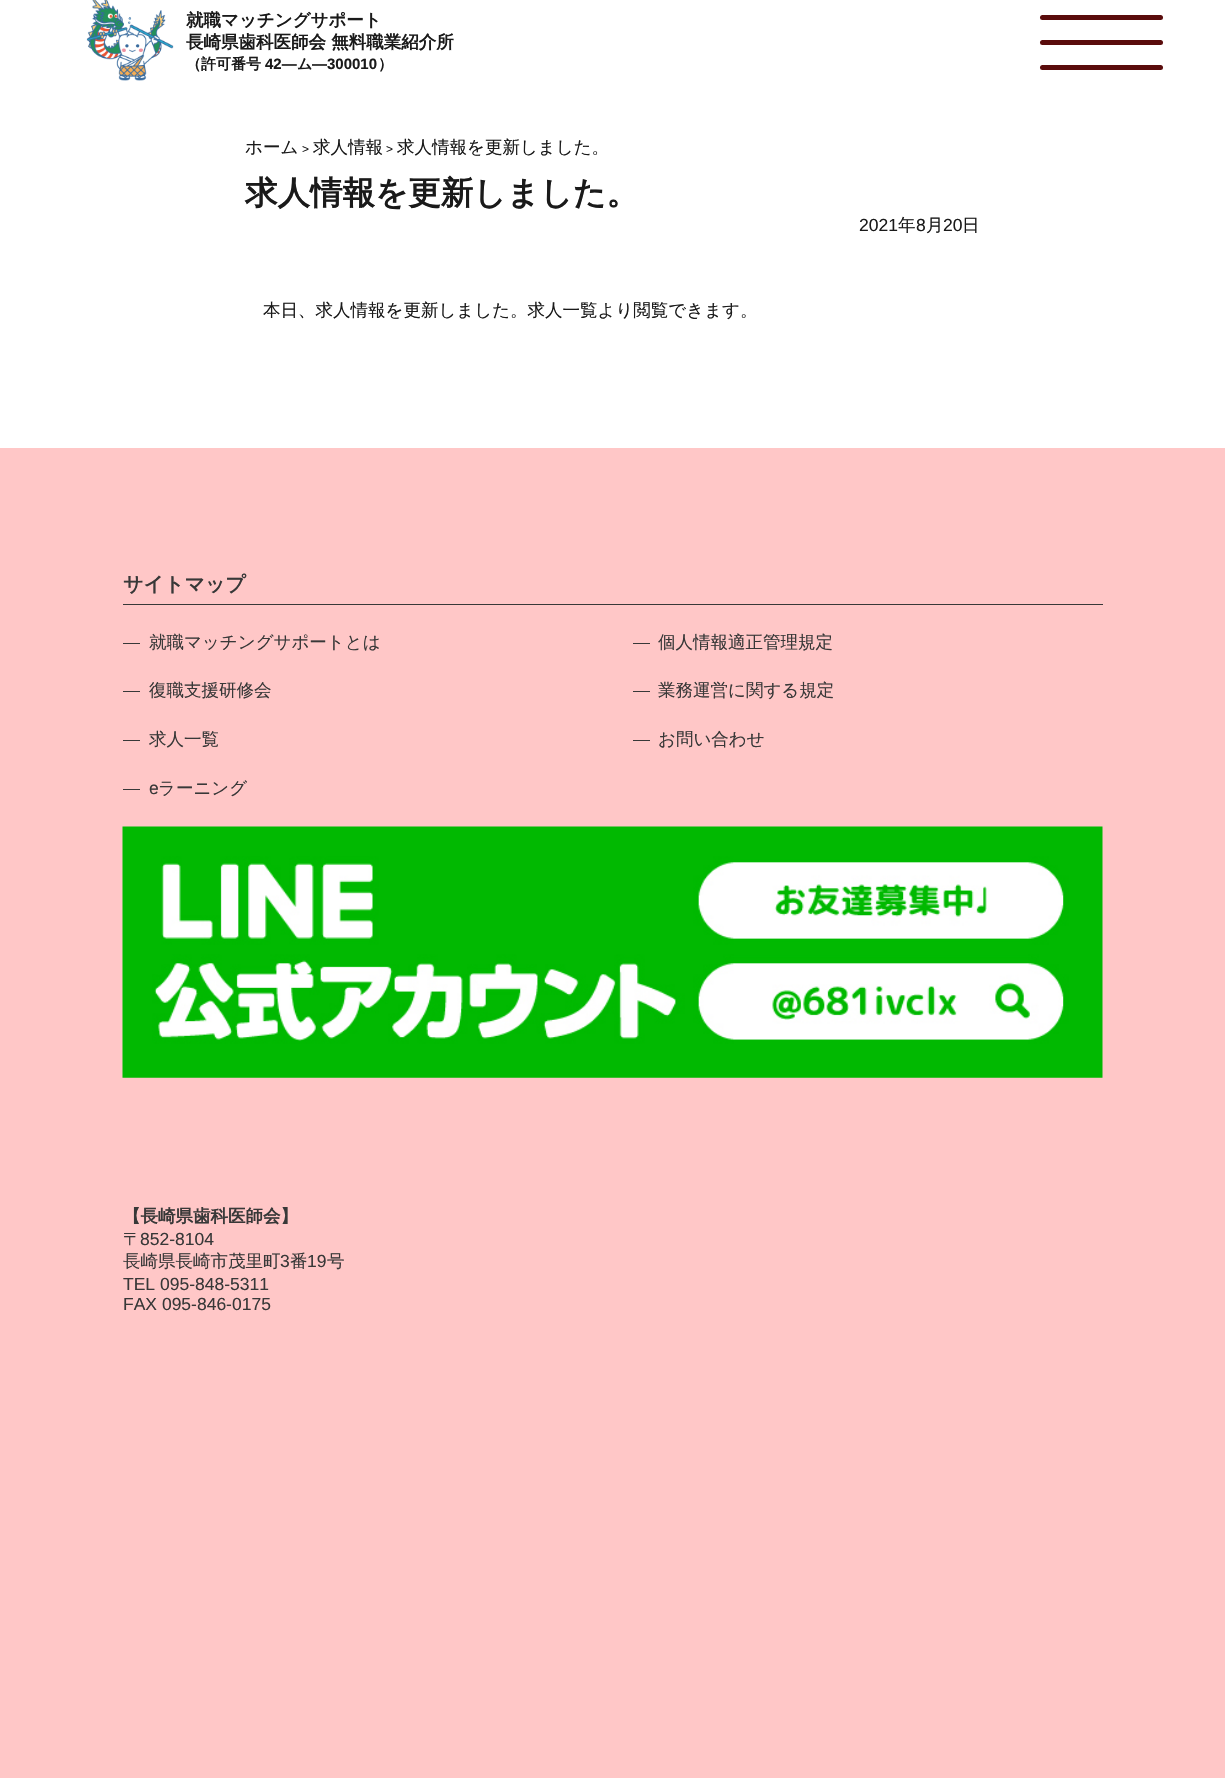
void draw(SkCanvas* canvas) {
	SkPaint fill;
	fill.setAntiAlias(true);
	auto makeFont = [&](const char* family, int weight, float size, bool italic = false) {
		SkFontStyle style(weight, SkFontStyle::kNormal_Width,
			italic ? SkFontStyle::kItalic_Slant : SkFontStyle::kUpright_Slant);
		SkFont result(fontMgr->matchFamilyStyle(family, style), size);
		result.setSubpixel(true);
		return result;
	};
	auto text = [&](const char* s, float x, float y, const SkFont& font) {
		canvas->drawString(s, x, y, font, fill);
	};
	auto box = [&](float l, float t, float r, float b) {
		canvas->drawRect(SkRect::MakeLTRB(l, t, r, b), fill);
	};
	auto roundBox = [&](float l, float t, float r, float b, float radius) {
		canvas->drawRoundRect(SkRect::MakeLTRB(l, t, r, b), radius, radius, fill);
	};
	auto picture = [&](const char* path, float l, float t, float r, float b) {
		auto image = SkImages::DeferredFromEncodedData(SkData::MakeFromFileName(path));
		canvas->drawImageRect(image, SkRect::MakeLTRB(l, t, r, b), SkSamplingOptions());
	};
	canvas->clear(0xFFFFFFFF);
	picture("image0.png", 86, 0, 174, 81);
	fill.setColor(0xFF5A0C0C);
	roundBox(1040, 15, 1163, 20, 2.5f);
	roundBox(1040, 40, 1163, 45, 2.5f);
	roundBox(1040, 65, 1163, 70, 2.5f);
	fill.setColor(0xFFFFC7C7);
	box(0, 448, 1225, 1778);
	fill.setColor(0xFF383838);
	box(123, 604, 1103, 605);
	box(123, 643, 140, 644);
	box(123, 691, 140, 692);
	box(123, 740, 140, 741);
	box(123, 789, 140, 790);
	box(633, 643, 650, 644);
	box(633, 691, 650, 692);
	box(633, 740, 650, 741);
	picture("image1.png", 122, 826, 1103, 1078);
	auto font1 = makeFont("WenQuanYi Zen Hei", 700, 17.5f);
	fill.setColor(0xFF1A1A1A);
	text("就職マッチングサポート", 186, 26, font1);
	text("長崎県歯科医師会 無料職業紹介所", 186, 48, font1);
	auto font2 = makeFont("WenQuanYi Zen Hei", 700, 15);
	text("（許可番号", 186, 69, font2);
	auto font3 = makeFont("Liberation Sans", 700, 15);
	text("42—", 265, 69, font3);
	text("ム", 297, 69, font2);
	text("—300010", 312, 69, font3);
	text("）", 378, 69, font2);
	auto font4 = makeFont("WenQuanYi Zen Hei", 500, 17.5f);
	text("ホーム", 245, 153, font4);
	auto font5 = makeFont("Liberation Sans", 400, 12);
	text(">", 302, 153, font5);
	text("求人情報", 313, 153, font4);
	text(">", 386, 153, font5);
	text("求人情報を更新しました。", 397, 153, font4);
	auto font6 = makeFont("WenQuanYi Zen Hei", 700, 32.5f);
	text("求人情報を更新しました。", 245, 204, font6);
	auto font7 = makeFont("Liberation Sans", 400, 17.5f);
	text("2021", 859, 231, font7);
	text("年", 898, 231, font4);
	text("8", 916, 231, font7);
	text("月", 926, 231, font4);
	text("20", 943, 231, font7);
	text("日", 962, 231, font4);
	text("本日、求人情報を更新しました。求人一覧より閲覧できます。", 263, 316, font4);
	auto font8 = makeFont("WenQuanYi Zen Hei", 700, 20);
	fill.setColor(0xFF383838);
	text("サイトマップ", 123, 591, font8);
	text("就職マッチングサポートとは", 149, 648, font4);
	text("復職支援研修会", 149, 696, font4);
	text("求人一覧", 149, 745, font4);
	text("e", 149, 794, font7);
	text("ラーニング", 158, 794, font4);
	text("個人情報適正管理規定", 658, 648, font4);
	text("業務運営に関する規定", 658, 696, font4);
	text("お問い合わせ", 658, 745, font4);
	text("【長崎県歯科医師会】", 123, 1222, font1);
	text("〒", 123, 1245, font4);
	text("852-8104", 140, 1245, font7);
	text("長崎県長崎市茂里町", 123, 1267, font4);
	text("3", 280, 1267, font7);
	text("番", 290, 1267, font4);
	text("19", 307, 1267, font7);
	text("号", 327, 1267, font4);
	text("TEL 095-848-5311", 123, 1290, font7);
	text("FAX 095-846-0175", 123, 1310, font7);
}
